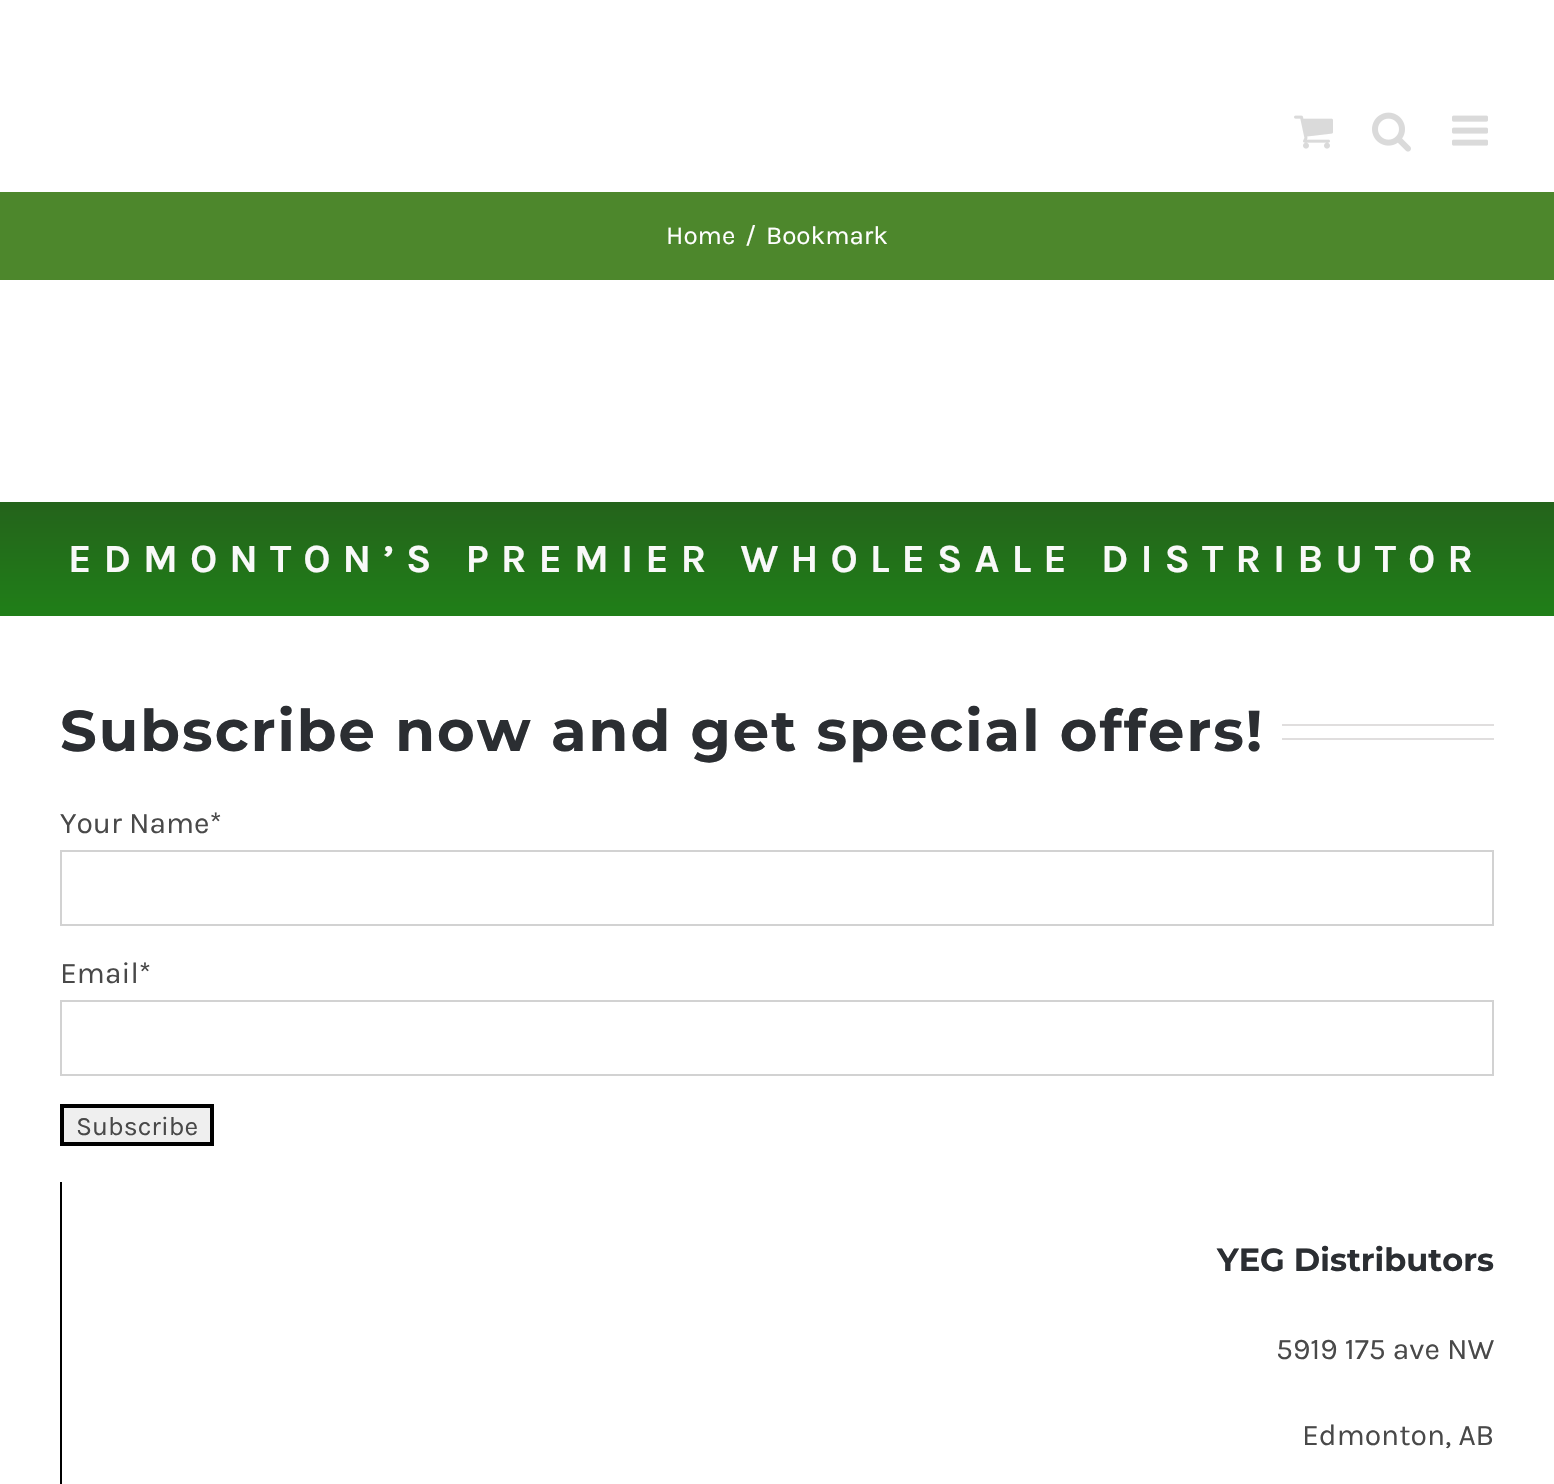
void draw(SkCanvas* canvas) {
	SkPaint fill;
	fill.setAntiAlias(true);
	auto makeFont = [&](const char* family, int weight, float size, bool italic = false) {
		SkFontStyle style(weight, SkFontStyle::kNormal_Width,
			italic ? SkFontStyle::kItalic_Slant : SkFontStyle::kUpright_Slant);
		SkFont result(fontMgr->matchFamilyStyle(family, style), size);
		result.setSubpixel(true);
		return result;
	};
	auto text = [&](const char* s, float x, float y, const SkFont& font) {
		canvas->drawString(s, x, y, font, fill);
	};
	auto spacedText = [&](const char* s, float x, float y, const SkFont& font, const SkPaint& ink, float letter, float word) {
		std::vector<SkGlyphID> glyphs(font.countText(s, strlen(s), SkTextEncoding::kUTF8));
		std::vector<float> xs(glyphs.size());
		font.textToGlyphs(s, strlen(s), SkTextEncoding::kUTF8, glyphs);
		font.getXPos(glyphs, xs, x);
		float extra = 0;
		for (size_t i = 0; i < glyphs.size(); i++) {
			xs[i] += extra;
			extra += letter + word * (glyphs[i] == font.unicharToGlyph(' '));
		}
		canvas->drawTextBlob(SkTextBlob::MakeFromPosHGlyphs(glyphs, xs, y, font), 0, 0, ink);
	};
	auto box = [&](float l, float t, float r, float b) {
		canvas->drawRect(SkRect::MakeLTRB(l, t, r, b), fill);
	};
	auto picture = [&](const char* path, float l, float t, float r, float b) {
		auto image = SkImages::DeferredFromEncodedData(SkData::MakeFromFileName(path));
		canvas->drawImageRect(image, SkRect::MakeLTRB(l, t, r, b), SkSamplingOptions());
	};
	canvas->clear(0xFFFFFFFF);
	picture("image0.png", 1294, 115, 1333, 149);
	picture("image1.png", 1372, 112, 1411, 152);
	picture("image2.png", 1452, 115, 1488, 146);
	fill.setColor(0xFF4D872C);
	box(0, 192, 1554, 280);
	{
		const SkColor colors[] = {0xFF24631B, 0xFF207F18};
		const float stops[] = {0, 1};
		const SkPoint ends[] = {{777, 502}, {777, 616}};
		fill.setShader(SkGradientShader::MakeLinear(ends, colors, stops, 2, SkTileMode::kClamp));
		fill.setAlpha(255);
	}
	box(0, 502, 1554, 616);
	fill.setShader(nullptr);
	fill.setColor(0xFFE0DEDE);
	box(1282, 724, 1494, 726);
	box(1282, 738, 1494, 740);
	fill.setStyle(SkPaint::kStroke_Style);
	fill.setStrokeWidth(2);
	fill.setColor(0xFFD2D2D2);
	canvas->drawRect(SkRect::MakeLTRB(61, 851, 1493, 925), fill);
	canvas->drawRect(SkRect::MakeLTRB(61, 1001, 1493, 1075), fill);
	fill.setStyle(SkPaint::kFill_Style);
	fill.setColor(0xFFEFEFEF);
	canvas->drawRect(SkRect::MakeLTRB(62, 1106, 212, 1144), fill);
	fill.setStyle(SkPaint::kStroke_Style);
	fill.setStrokeWidth(4);
	fill.setColor(0xFF000000);
	canvas->drawRect(SkRect::MakeLTRB(62, 1106, 212, 1144), fill);
	fill.setStyle(SkPaint::kFill_Style);
	box(60, 1182, 62, 1484);
	auto font1 = makeFont("Karla", 400, 26);
	fill.setColor(0xFFFFFFFF);
	text("Home", 666, 244, font1);
	text("/", 745, 244, font1);
	text("Bookmark", 766, 244, font1);
	auto font2 = makeFont("Karla", 700, 40);
	fill.setColor(0xFFF9F9F9);
	spacedText("EDMONTON’S PREMIER WHOLESALE DISTRIBUTOR", 68, 572, font2, fill, 12, 0);
	auto font3 = makeFont("Montserrat", 700, 57.6f);
	fill.setColor(0xFF2B2E32);
	spacedText("Subscribe now and get special offers!", 60, 751, font3, fill, 2, 0);
	auto font4 = makeFont("Karla", 400, 30);
	fill.setColor(0xFF494949);
	text("Your Name*", 60, 833, font4);
	text("Email*", 60, 983, font4);
	auto font5 = makeFont("Karla", 400, 26.5f);
	text("Subscribe", 76, 1135, font5);
	auto font6 = makeFont("Montserrat", 700, 32);
	fill.setColor(0xFF2B2E32);
	text("YEG Distributors", 1217, 1271, font6);
	fill.setColor(0xFF494949);
	text("5919 175 ave NW", 1276, 1359, font4);
	text("Edmonton, AB", 1302, 1445, font4);
}
